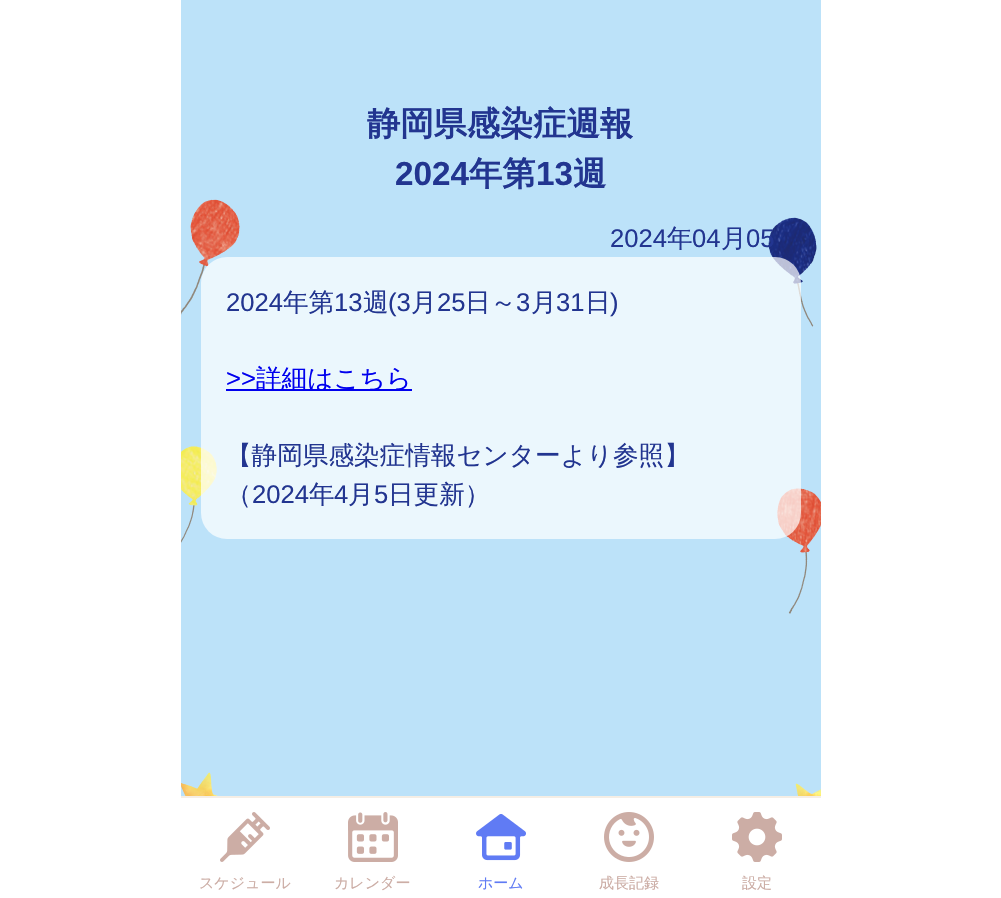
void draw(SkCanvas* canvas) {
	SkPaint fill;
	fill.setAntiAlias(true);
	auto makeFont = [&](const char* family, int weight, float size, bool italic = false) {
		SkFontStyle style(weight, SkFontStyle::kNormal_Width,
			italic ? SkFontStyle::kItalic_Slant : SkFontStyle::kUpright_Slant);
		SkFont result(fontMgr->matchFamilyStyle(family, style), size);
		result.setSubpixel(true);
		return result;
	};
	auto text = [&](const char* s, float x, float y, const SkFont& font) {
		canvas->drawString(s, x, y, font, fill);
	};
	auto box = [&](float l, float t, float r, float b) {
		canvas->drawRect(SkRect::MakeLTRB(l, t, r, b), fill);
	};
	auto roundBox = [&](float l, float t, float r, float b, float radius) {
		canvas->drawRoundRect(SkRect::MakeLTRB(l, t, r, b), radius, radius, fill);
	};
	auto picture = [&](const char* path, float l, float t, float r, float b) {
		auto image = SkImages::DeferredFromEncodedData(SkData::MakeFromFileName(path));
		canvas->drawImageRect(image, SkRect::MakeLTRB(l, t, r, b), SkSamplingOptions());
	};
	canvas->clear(0xFFFFFFFF);
	picture("image0.png", 181, 0, 821, 796);
	fill.setColor(0xB3FFFFFF);
	roundBox(201, 257, 801, 539, 26);
	fill.setColor(0xFF0000EE);
	box(226, 389, 412, 391);
	fill.setColor(0xFFF5EEE5);
	box(181, 796, 821, 798);
	picture("image1.png", 220, 812, 270, 862);
	picture("image2.png", 348, 812, 398, 862);
	picture("image3.png", 476, 814, 526, 861);
	picture("image4.png", 604, 812, 654, 862);
	picture("image5.png", 732, 812, 782, 862);
	auto font1 = makeFont("WenQuanYi Zen Hei", 700, 33.25f);
	fill.setColor(0xFF223590);
	text("静岡県感染症週報", 367, 135, font1);
	auto font2 = makeFont("Liberation Sans", 700, 33.25f);
	text("2024", 395, 185, font2);
	text("年第", 469, 185, font1);
	text("13", 536, 185, font2);
	text("週", 573, 185, font1);
	auto font3 = makeFont("Liberation Sans", 400, 25.6f);
	text("2024", 610, 247, font3);
	auto font4 = makeFont("WenQuanYi Zen Hei", 500, 25.6f);
	text("年", 667, 247, font4);
	text("04", 692, 247, font3);
	text("月", 721, 247, font4);
	text("05", 746, 247, font3);
	text("2024", 226, 311, font3);
	text("年第", 283, 311, font4);
	text("13", 334, 311, font3);
	text("週", 363, 311, font4);
	text("(3", 388, 311, font3);
	text("月", 411, 311, font4);
	text("25", 437, 311, font3);
	text("日～", 465, 311, font4);
	text("3", 516, 311, font3);
	text("月", 531, 311, font4);
	text("31", 556, 311, font3);
	text("日", 585, 311, font4);
	text(")", 610, 311, font3);
	fill.setColor(0xFF0000EE);
	text(">>", 226, 387, font3);
	text("詳細はこちら", 256, 387, font4);
	fill.setColor(0xFF223590);
	text("【静岡県感染症情報センターより参照】", 226, 464, font4);
	text("（", 226, 503, font4);
	text("2024", 252, 503, font3);
	text("年", 309, 503, font4);
	text("4", 334, 503, font3);
	text("月", 348, 503, font4);
	text("5", 374, 503, font3);
	text("日更新）", 388, 503, font4);
	auto font5 = makeFont("WenQuanYi Zen Hei", 500, 15);
	fill.setColor(0xFFCCADA5);
	text("スケジュール", 199, 888, font5);
	text("カレンダー", 334, 888, font5);
	fill.setColor(0xFF607BF4);
	text("ホーム", 478, 888, font5);
	fill.setColor(0xFFCCADA5);
	text("成長記録", 599, 888, font5);
	text("設定", 742, 888, font5);
}
